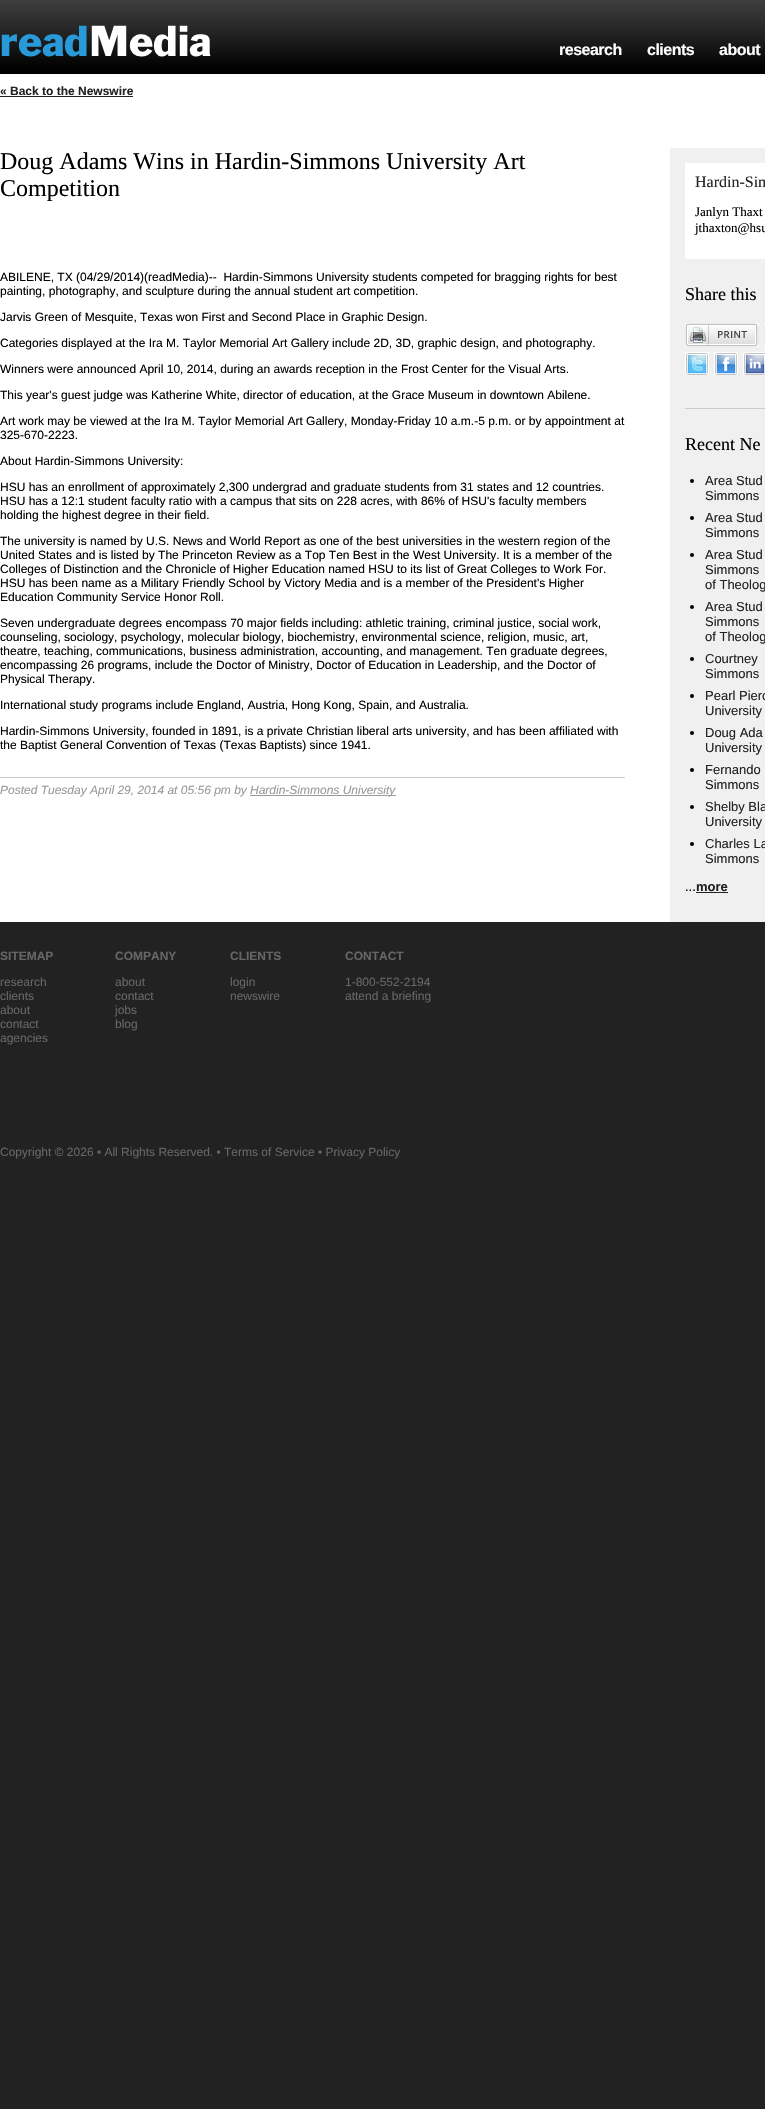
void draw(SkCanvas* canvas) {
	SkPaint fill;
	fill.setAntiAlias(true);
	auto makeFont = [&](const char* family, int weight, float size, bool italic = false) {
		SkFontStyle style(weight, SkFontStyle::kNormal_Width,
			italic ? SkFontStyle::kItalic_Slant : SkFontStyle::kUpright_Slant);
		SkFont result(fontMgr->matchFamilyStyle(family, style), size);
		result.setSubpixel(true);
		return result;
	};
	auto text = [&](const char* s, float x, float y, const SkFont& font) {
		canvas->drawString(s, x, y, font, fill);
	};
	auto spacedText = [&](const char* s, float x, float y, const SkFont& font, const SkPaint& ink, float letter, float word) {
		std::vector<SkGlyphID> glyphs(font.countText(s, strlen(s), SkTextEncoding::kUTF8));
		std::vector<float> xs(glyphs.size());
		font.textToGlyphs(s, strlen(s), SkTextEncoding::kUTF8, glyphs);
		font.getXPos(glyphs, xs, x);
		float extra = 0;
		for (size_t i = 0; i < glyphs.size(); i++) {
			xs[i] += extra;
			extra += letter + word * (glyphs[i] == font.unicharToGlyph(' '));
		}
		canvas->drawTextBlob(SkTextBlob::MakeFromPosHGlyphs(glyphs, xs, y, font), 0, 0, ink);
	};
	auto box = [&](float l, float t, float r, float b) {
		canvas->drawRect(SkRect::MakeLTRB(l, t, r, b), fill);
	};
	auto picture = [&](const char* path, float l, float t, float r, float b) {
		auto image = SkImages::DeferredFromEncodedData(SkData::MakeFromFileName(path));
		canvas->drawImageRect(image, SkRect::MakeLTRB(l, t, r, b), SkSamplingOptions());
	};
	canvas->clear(0xFF222222);
	picture("image0.png", 0, 0, 765, 74);
	picture("image1.png", 1, 25, 211, 57);
	fill.setColor(0xFFFFFFFF);
	box(0, 74, 765, 922);
	fill.setColor(0xFF222222);
	box(0, 96, 133, 97);
	fill.setColor(0xFFCCCCCC);
	box(0, 777, 625, 778);
	fill.setColor(0xFF999999);
	box(250, 795, 396, 796);
	fill.setColor(0xFFF0F0F0);
	box(670, 148, 765, 922);
	fill.setColor(0xFFFFFFFF);
	box(685, 163, 765, 259);
	fill.setColor(0xFFCCCCCC);
	box(685, 408, 765, 409);
	picture("image2.png", 685, 323, 759, 347);
	picture("image3.png", 764, 323, 765, 347);
	picture("image4.png", 685, 352, 709, 375);
	picture("image5.png", 714, 352, 738, 375);
	picture("image6.png", 743, 352, 765, 375);
	fill.setColor(0xFF000000);
	canvas->drawCircle(692, 481, 2, fill);
	canvas->drawCircle(692, 518, 2, fill);
	canvas->drawCircle(692, 555, 2, fill);
	canvas->drawCircle(692, 607, 2, fill);
	canvas->drawCircle(692, 659, 2, fill);
	canvas->drawCircle(692, 696, 2, fill);
	canvas->drawCircle(692, 733, 2, fill);
	canvas->drawCircle(692, 770, 2, fill);
	canvas->drawCircle(692, 807, 2, fill);
	canvas->drawCircle(692, 844, 2, fill);
	fill.setColor(0xFF222222);
	box(696, 892, 728, 893);
	auto font1 = makeFont("Liberation Sans", 700, 16);
	fill.setColor(0xFFFFFFFF);
	spacedText("research", 559, 55, font1, fill, -0.5f, 0);
	spacedText("clients", 647, 55, font1, fill, -0.5f, 0);
	spacedText("about", 719, 55, font1, fill, -0.5f, 0);
	auto font2 = makeFont("Liberation Sans", 700, 12);
	fill.setColor(0xFF222222);
	text("« Back to the Newswire", 0, 95, font2);
	auto font3 = makeFont("Liberation Serif", 400, 24);
	fill.setColor(0xFF000000);
	text("Doug Adams Wins in Hardin-Simmons University Art", 0, 169, font3);
	text("Competition", 0, 196, font3);
	auto font4 = makeFont("Liberation Sans", 400, 12);
	text("ABILENE, TX (04/29/2014)(readMedia)--  Hardin-Simmons University students competed for bragging rights for best", 0, 281, font4);
	text("painting, photography, and sculpture during the annual student art competition.", 0, 295, font4);
	text("Jarvis Green of Mesquite, Texas won First and Second Place in Graphic Design.", 0, 321, font4);
	text("Categories displayed at the Ira M. Taylor Memorial Art Gallery include 2D, 3D, graphic design, and photography.", 0, 347, font4);
	text("Winners were announced April 10, 2014, during an awards reception in the Frost Center for the Visual Arts.", 0, 373, font4);
	text("This year's guest judge was Katherine White, director of education, at the Grace Museum in downtown Abilene.", 0, 399, font4);
	text("Art work may be viewed at the Ira M. Taylor Memorial Art Gallery, Monday-Friday 10 a.m.-5 p.m. or by appointment at", 0, 425, font4);
	text("325-670-2223.", 0, 439, font4);
	text("About Hardin-Simmons University:", 0, 465, font4);
	text("HSU has an enrollment of approximately 2,300 undergrad and graduate students from 31 states and 12 countries.", 0, 491, font4);
	text("HSU has a 12:1 student faculty ratio with a campus that sits on 228 acres, with 86% of HSU's faculty members", 0, 505, font4);
	text("holding the highest degree in their field.", 0, 519, font4);
	text("The university is named by U.S. News and World Report as one of the best universities in the western region of the", 0, 545, font4);
	text("United States and is listed by The Princeton Review as a Top Ten Best in the West University. It is a member of the", 0, 559, font4);
	text("Colleges of Distinction and the Chronicle of Higher Education named HSU to its list of Great Colleges to Work For.", 0, 573, font4);
	text("HSU has been name as a Military Friendly School by Victory Media and is a member of the President's Higher", 0, 587, font4);
	text("Education Community Service Honor Roll.", 0, 601, font4);
	text("Seven undergraduate degrees encompass 70 major fields including: athletic training, criminal justice, social work,", 0, 627, font4);
	text("counseling, sociology, psychology, molecular biology, biochemistry, environmental science, religion, music, art,", 0, 641, font4);
	text("theatre, teaching, communications, business administration, accounting, and management. Ten graduate degrees,", 0, 655, font4);
	text("encompassing 26 programs, include the Doctor of Ministry, Doctor of Education in Leadership, and the Doctor of", 0, 669, font4);
	text("Physical Therapy.", 0, 683, font4);
	text("International study programs include England, Austria, Hong Kong, Spain, and Australia.", 0, 709, font4);
	text("Hardin-Simmons University, founded in 1891, is a private Christian liberal arts university, and has been affiliated with", 0, 735, font4);
	text("the Baptist General Convention of Texas (Texas Baptists) since 1941.", 0, 749, font4);
	auto font5 = makeFont("Liberation Sans", 400, 12, true);
	fill.setColor(0xFF999999);
	text("Posted Tuesday April 29, 2014 at 05:56 pm by", 0, 794, font5);
	text("Hardin-Simmons University", 250, 794, font5);
	auto font6 = makeFont("Liberation Serif", 400, 16);
	fill.setColor(0xFF222222);
	text("Hardin-Sim", 695, 187, font6);
	auto font7 = makeFont("Liberation Serif", 400, 13);
	fill.setColor(0xFF000000);
	text("Janlyn Thaxt", 695, 216, font7);
	text("jthaxton@hsu", 695, 232, font7);
	auto font8 = makeFont("Liberation Serif", 400, 18);
	text("Share this", 685, 300, font8);
	text("Recent Ne", 685, 450, font8);
	auto font9 = makeFont("Liberation Sans", 400, 13);
	fill.setColor(0xFF222222);
	text("Area Stud", 705, 485, font9);
	text("Simmons", 705, 500, font9);
	text("Area Stud", 705, 522, font9);
	text("Simmons", 705, 537, font9);
	text("Area Stud", 705, 559, font9);
	text("Simmons", 705, 574, font9);
	text("of Theolog", 705, 589, font9);
	text("Area Stud", 705, 611, font9);
	text("Simmons", 705, 626, font9);
	text("of Theolog", 705, 641, font9);
	text("Courtney", 705, 663, font9);
	text("Simmons", 705, 678, font9);
	text("Pearl Pierc", 705, 700, font9);
	text("University", 705, 715, font9);
	text("Doug Ada", 705, 737, font9);
	text("University", 705, 752, font9);
	text("Fernando", 705, 774, font9);
	text("Simmons", 705, 789, font9);
	text("Shelby Bla", 705, 811, font9);
	text("University", 705, 826, font9);
	text("Charles La", 705, 848, font9);
	text("Simmons", 705, 863, font9);
	fill.setColor(0xFF000000);
	text("...", 685, 891, font9);
	auto font10 = makeFont("Liberation Sans", 700, 13);
	fill.setColor(0xFF222222);
	text("more", 696, 891, font10);
	fill.setColor(0xFF666666);
	text("SITEMAP", 0, 960, font2);
	text("research", 0, 986, font4);
	text("clients", 0, 1000, font4);
	text("about", 0, 1014, font4);
	text("contact", 0, 1028, font4);
	text("agencies", 0, 1042, font4);
	text("COMPANY", 115, 960, font2);
	text("about", 115, 986, font4);
	text("contact", 115, 1000, font4);
	text("jobs", 115, 1014, font4);
	text("blog", 115, 1028, font4);
	text("CLIENTS", 230, 960, font2);
	text("login", 230, 986, font4);
	text("newswire", 230, 1000, font4);
	text("CONTACT", 345, 960, font2);
	text("1-800-552-2194", 345, 986, font4);
	text("attend a briefing", 345, 1000, font4);
	text("Copyright © 2026 • All Rights Reserved. • Terms of Service • Privacy Policy", 0, 1156, font4);
}
